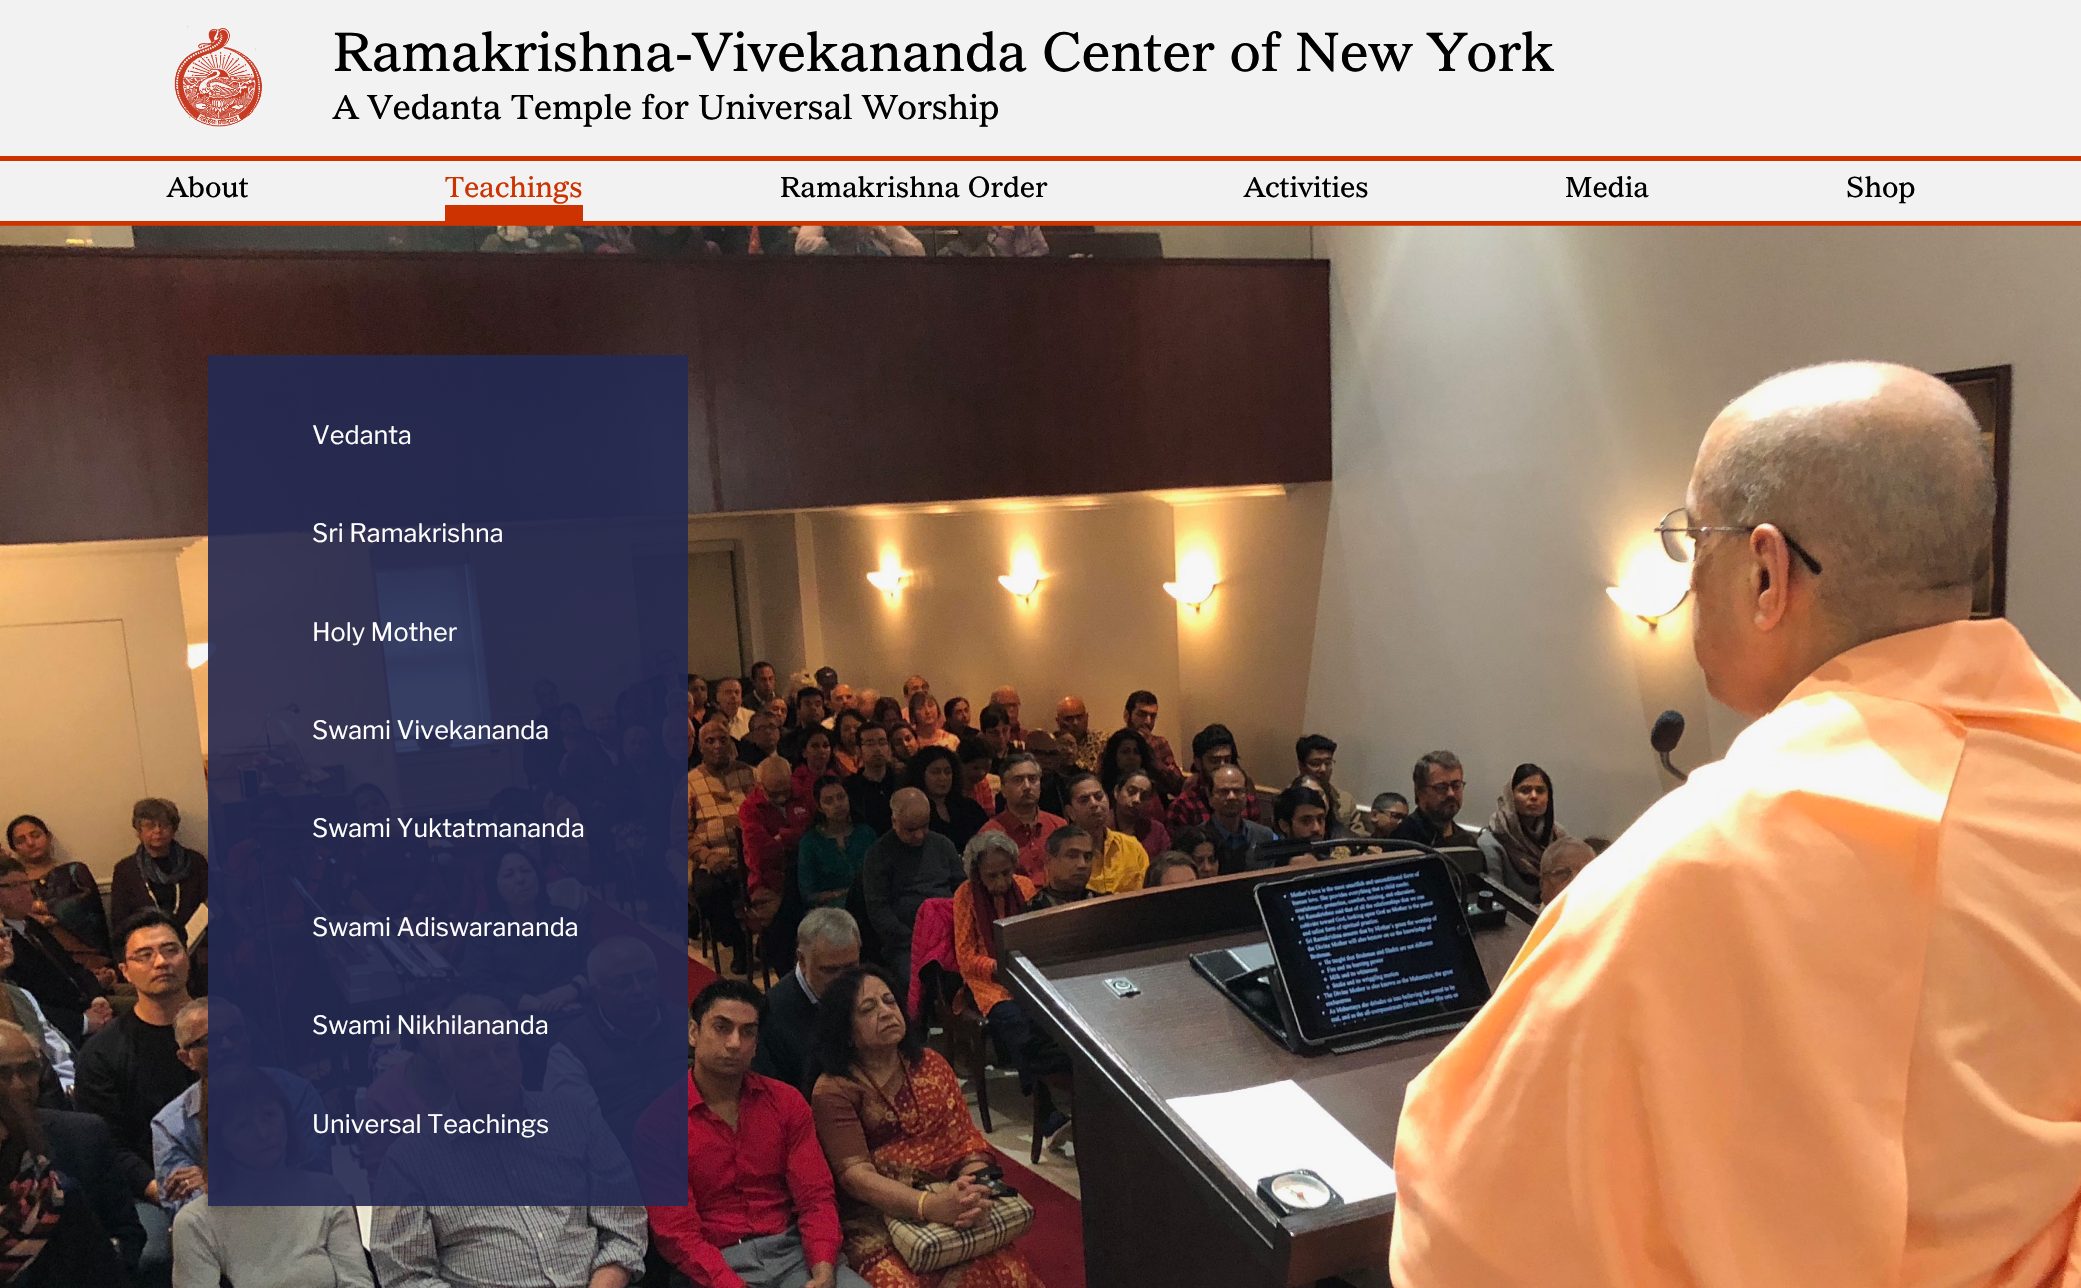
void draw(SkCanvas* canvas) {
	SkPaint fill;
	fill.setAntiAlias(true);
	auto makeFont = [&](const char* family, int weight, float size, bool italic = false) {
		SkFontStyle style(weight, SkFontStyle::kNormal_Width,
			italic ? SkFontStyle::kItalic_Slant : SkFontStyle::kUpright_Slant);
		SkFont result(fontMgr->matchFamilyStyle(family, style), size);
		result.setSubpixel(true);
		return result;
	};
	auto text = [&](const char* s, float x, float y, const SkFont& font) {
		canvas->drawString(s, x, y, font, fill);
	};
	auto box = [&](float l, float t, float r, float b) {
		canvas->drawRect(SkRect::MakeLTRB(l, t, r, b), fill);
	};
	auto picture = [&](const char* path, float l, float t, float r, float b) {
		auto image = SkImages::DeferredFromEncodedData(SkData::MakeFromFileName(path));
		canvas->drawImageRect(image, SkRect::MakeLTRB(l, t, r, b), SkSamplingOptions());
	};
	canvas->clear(0xFFF2F2F2);
	picture("image0.png", 174, 26, 263, 127);
	fill.setColor(0xFFCC3300);
	box(0, 156, 2081, 161);
	box(445, 205, 583, 221);
	box(0, 221, 2081, 226);
	picture("image1.png", 0, 225, 2081, 1288);
	fill.setColor(0xE6232952);
	box(208, 355, 688, 1206);
	auto font1 = makeFont("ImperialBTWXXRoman", 400, 53.2f);
	fill.setColor(0xFF000000);
	text("Ramakrishna-Vivekananda Center of New York", 333, 71, font1);
	auto font2 = makeFont("ImperialBTWXXRoman", 400, 33.6f);
	text("A Vedanta Temple for Universal Worship", 333, 119, font2);
	auto font3 = makeFont("ImperialBTWXXRoman", 400, 28);
	text("About", 167, 197, font3);
	fill.setColor(0xFFCC3300);
	text("Teachings", 445, 197, font3);
	fill.setColor(0xFF000000);
	text("Ramakrishna Order", 780, 197, font3);
	text("Activities", 1244, 197, font3);
	text("Media", 1565, 197, font3);
	text("Shop", 1846, 197, font3);
	auto font4 = makeFont("Libre Franklin", 100, 25.25f);
	fill.setColor(0xFFFFFFFF);
	text("Vedanta", 312, 444, font4);
	text("Sri Ramakrishna", 312, 542, font4);
	text("Holy Mother", 312, 641, font4);
	text("Swami Vivekananda", 312, 739, font4);
	text("Swami Yuktatmananda", 312, 837, font4);
	text("Swami Adiswarananda", 312, 936, font4);
	text("Swami Nikhilananda", 312, 1034, font4);
	text("Universal Teachings", 312, 1133, font4);
}
